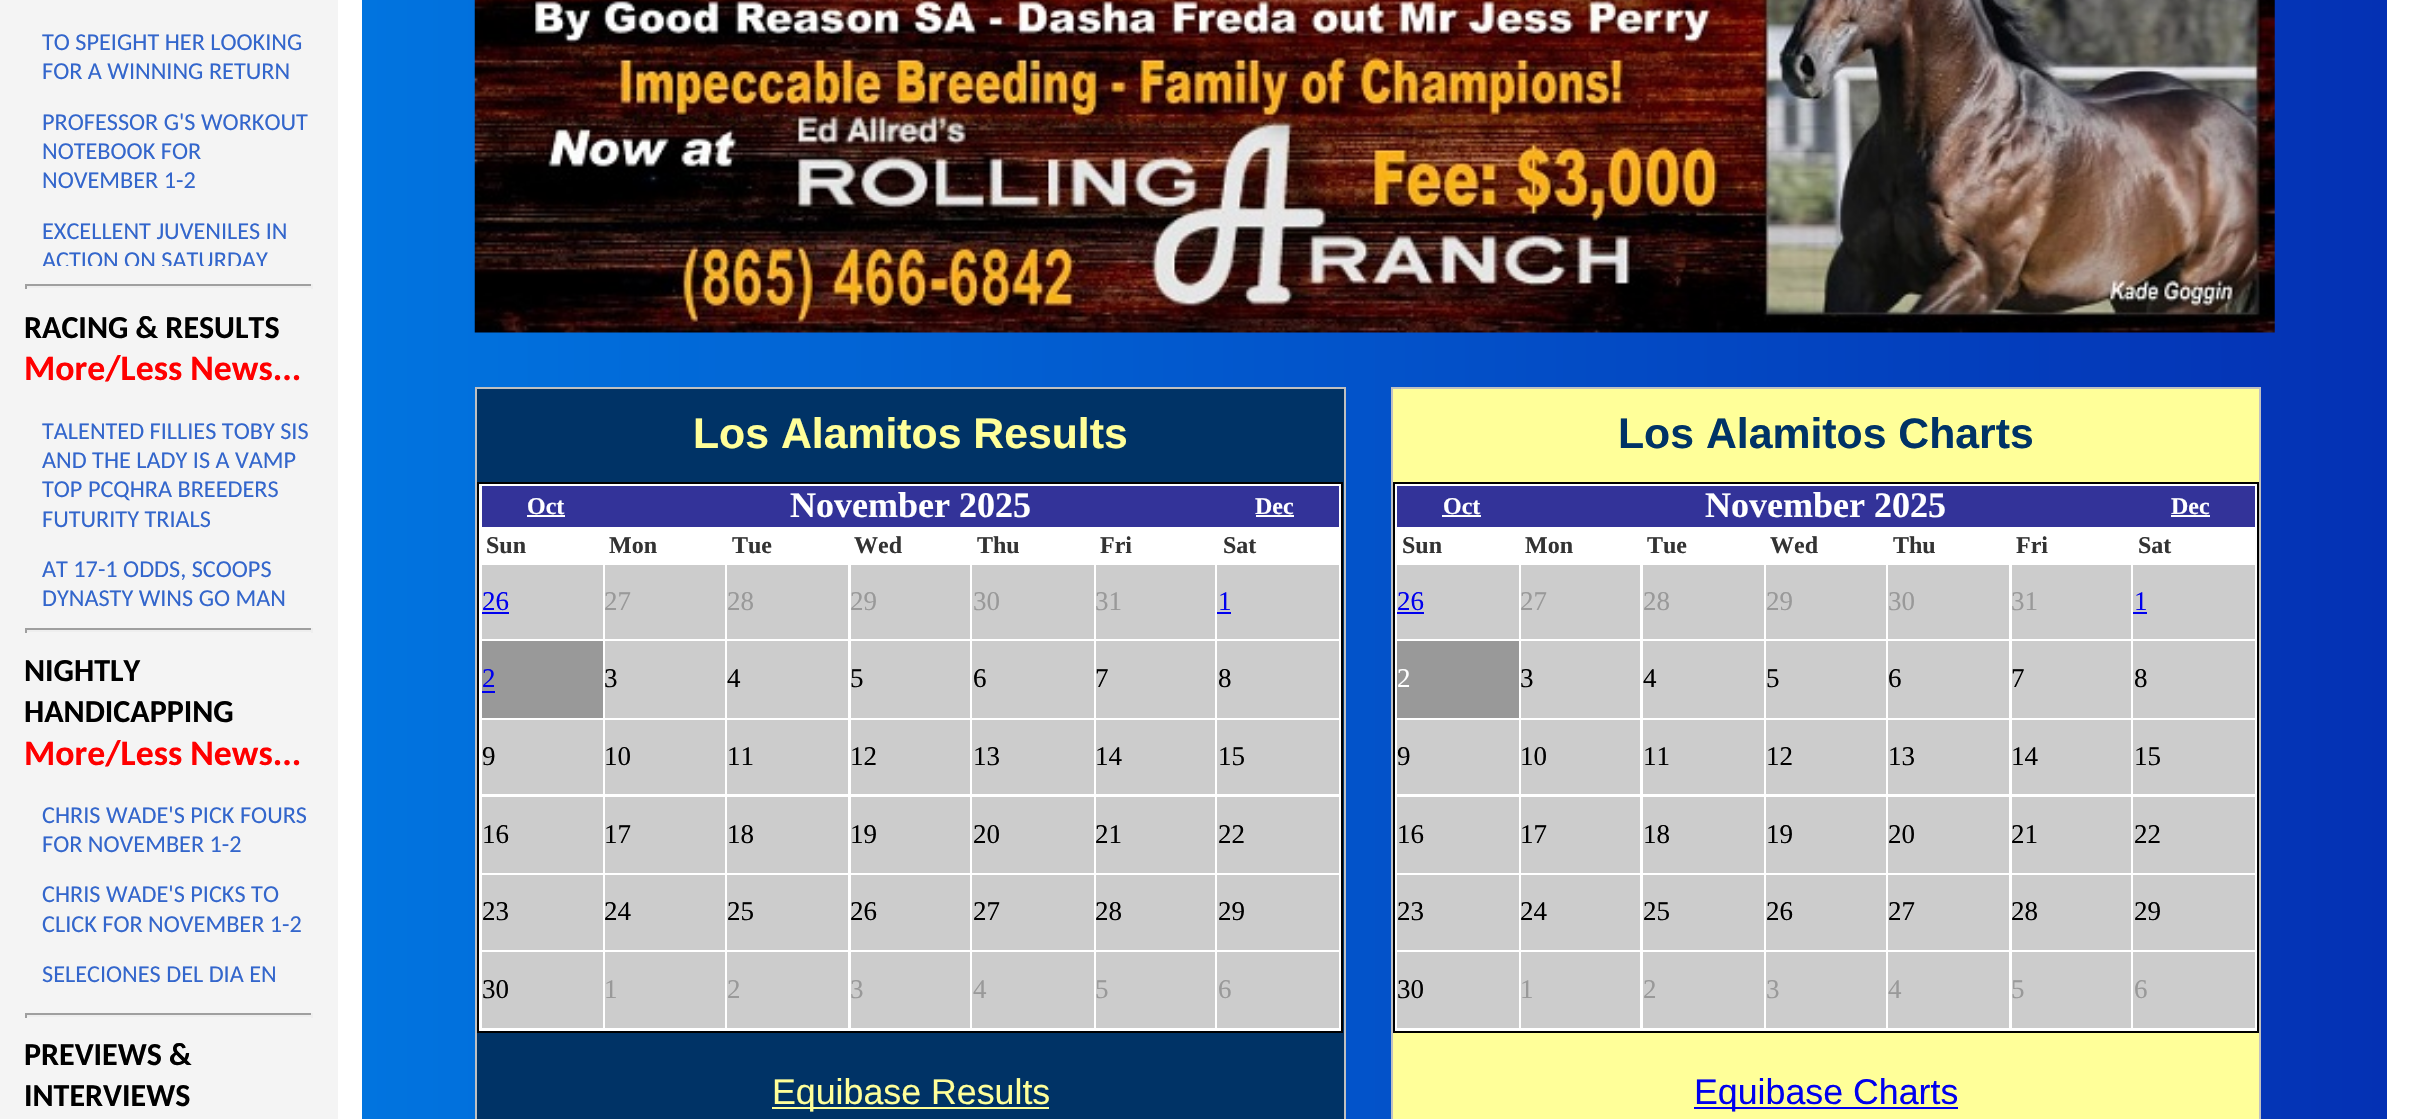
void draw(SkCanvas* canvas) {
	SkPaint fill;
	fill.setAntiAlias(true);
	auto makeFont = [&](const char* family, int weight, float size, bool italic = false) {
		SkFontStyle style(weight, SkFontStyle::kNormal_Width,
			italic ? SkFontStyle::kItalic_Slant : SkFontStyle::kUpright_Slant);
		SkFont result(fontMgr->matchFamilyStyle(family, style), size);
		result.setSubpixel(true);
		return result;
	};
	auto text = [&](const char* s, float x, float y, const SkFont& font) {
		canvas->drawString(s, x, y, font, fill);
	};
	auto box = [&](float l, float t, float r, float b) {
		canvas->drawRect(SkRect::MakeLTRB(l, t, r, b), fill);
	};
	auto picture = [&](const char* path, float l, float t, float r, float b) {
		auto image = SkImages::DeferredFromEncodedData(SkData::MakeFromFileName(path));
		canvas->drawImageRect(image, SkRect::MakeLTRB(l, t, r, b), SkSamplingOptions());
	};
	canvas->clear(0xFFFFFFFF);
	fill.setColor(0xFFF4F4F4);
	box(0, 0, 338, 1119);
	fill.setColor(0xFF9F9F9F);
	box(25, 284, 313, 286);
	fill.setColor(0xFFEEEEEE);
	box(311, 284, 313, 289);
	box(25, 286, 313, 288);
	fill.setColor(0xFF9F9F9F);
	box(25, 284, 27, 289);
	box(25, 628, 313, 630);
	fill.setColor(0xFFEEEEEE);
	box(311, 628, 313, 633);
	box(25, 630, 313, 632);
	fill.setColor(0xFF9F9F9F);
	box(25, 628, 27, 633);
	box(25, 1013, 313, 1015);
	fill.setColor(0xFFEEEEEE);
	box(311, 1013, 313, 1018);
	box(25, 1015, 313, 1017);
	fill.setColor(0xFF9F9F9F);
	box(25, 1013, 27, 1018);
	{
		const SkColor colors[] = {0xFF0174DF, 0xFF0431B4};
		const float stops[] = {0, 1};
		const SkPoint ends[] = {{362, -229}, {2387, -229}};
		fill.setShader(SkGradientShader::MakeLinear(ends, colors, stops, 2, SkTileMode::kClamp));
		fill.setAlpha(255);
	}
	box(362, 0, 2387, 1119);
	picture("image0.png", 474, 0, 2275, 333);
	fill.setShader(nullptr);
	fill.setColor(0xFF003366);
	canvas->drawRect(SkRect::MakeLTRB(476, 388, 1345, 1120), fill);
	fill.setStyle(SkPaint::kStroke_Style);
	fill.setStrokeWidth(2);
	fill.setColor(0xFFC0C0C0);
	canvas->drawRect(SkRect::MakeLTRB(476, 388, 1345, 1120), fill);
	fill.setStyle(SkPaint::kFill_Style);
	fill.setColor(0xFFFFFFFF);
	canvas->drawRect(SkRect::MakeLTRB(478, 483, 1342, 1032), fill);
	fill.setStyle(SkPaint::kStroke_Style);
	fill.setColor(0xFF000000);
	canvas->drawRect(SkRect::MakeLTRB(478, 483, 1342, 1032), fill);
	fill.setStyle(SkPaint::kFill_Style);
	fill.setColor(0xFF333399);
	box(482, 486, 1339, 527);
	fill.setColor(0xFFFFFFFF);
	box(527, 515, 565, 517);
	box(1256, 515, 1294, 517);
	fill.setColor(0xFFCCCCCC);
	box(482, 565, 603, 639);
	fill.setColor(0xFF0000EE);
	box(482, 612, 509, 614);
	fill.setColor(0xFFCCCCCC);
	box(605, 565, 725, 639);
	box(727, 565, 848, 639);
	box(851, 565, 970, 639);
	box(972, 565, 1094, 639);
	box(1096, 565, 1215, 639);
	box(1217, 565, 1339, 639);
	fill.setColor(0xFF0000EE);
	box(1217, 612, 1231, 614);
	fill.setColor(0xFF999999);
	box(482, 641, 603, 718);
	fill.setColor(0xFF0000EE);
	box(482, 691, 495, 693);
	fill.setColor(0xFFCCCCCC);
	box(605, 641, 725, 718);
	box(727, 641, 848, 718);
	box(851, 641, 970, 718);
	box(972, 641, 1094, 718);
	box(1096, 641, 1215, 718);
	box(1217, 641, 1339, 718);
	box(482, 720, 603, 794);
	box(605, 720, 725, 794);
	box(727, 720, 848, 794);
	box(851, 720, 970, 794);
	box(972, 720, 1094, 794);
	box(1096, 720, 1215, 794);
	box(1217, 720, 1339, 794);
	box(482, 797, 603, 873);
	box(605, 797, 725, 873);
	box(727, 797, 848, 873);
	box(851, 797, 970, 873);
	box(972, 797, 1094, 873);
	box(1096, 797, 1215, 873);
	box(1217, 797, 1339, 873);
	box(482, 875, 603, 950);
	box(605, 875, 725, 950);
	box(727, 875, 848, 950);
	box(851, 875, 970, 950);
	box(972, 875, 1094, 950);
	box(1096, 875, 1215, 950);
	box(1217, 875, 1339, 950);
	box(482, 952, 603, 1028);
	box(605, 952, 725, 1028);
	box(727, 952, 848, 1028);
	box(851, 952, 970, 1028);
	box(972, 952, 1094, 1028);
	box(1096, 952, 1215, 1028);
	box(1217, 952, 1339, 1028);
	fill.setColor(0xFFFFFF99);
	box(772, 1107, 1049, 1109);
	canvas->drawRect(SkRect::MakeLTRB(1392, 388, 2260, 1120), fill);
	fill.setStyle(SkPaint::kStroke_Style);
	fill.setColor(0xFFC0C0C0);
	canvas->drawRect(SkRect::MakeLTRB(1392, 388, 2260, 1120), fill);
	fill.setStyle(SkPaint::kFill_Style);
	fill.setColor(0xFFFFFFFF);
	canvas->drawRect(SkRect::MakeLTRB(1394, 483, 2258, 1032), fill);
	fill.setStyle(SkPaint::kStroke_Style);
	fill.setColor(0xFF000000);
	canvas->drawRect(SkRect::MakeLTRB(1394, 483, 2258, 1032), fill);
	fill.setStyle(SkPaint::kFill_Style);
	fill.setColor(0xFF333399);
	box(1397, 486, 2255, 527);
	fill.setColor(0xFFFFFFFF);
	box(1442, 515, 1481, 517);
	box(2171, 515, 2210, 517);
	fill.setColor(0xFFCCCCCC);
	box(1397, 565, 1519, 639);
	fill.setColor(0xFF0000EE);
	box(1397, 612, 1424, 614);
	fill.setColor(0xFFCCCCCC);
	box(1521, 565, 1640, 639);
	box(1643, 565, 1764, 639);
	box(1766, 565, 1886, 639);
	box(1888, 565, 2009, 639);
	box(2012, 565, 2131, 639);
	box(2133, 565, 2255, 639);
	fill.setColor(0xFF0000EE);
	box(2133, 612, 2147, 614);
	fill.setColor(0xFF999999);
	box(1397, 641, 1519, 718);
	fill.setColor(0xFFCCCCCC);
	box(1521, 641, 1640, 718);
	box(1643, 641, 1764, 718);
	box(1766, 641, 1886, 718);
	box(1888, 641, 2009, 718);
	box(2012, 641, 2131, 718);
	box(2133, 641, 2255, 718);
	box(1397, 720, 1519, 794);
	box(1521, 720, 1640, 794);
	box(1643, 720, 1764, 794);
	box(1766, 720, 1886, 794);
	box(1888, 720, 2009, 794);
	box(2012, 720, 2131, 794);
	box(2133, 720, 2255, 794);
	box(1397, 797, 1519, 873);
	box(1521, 797, 1640, 873);
	box(1643, 797, 1764, 873);
	box(1766, 797, 1886, 873);
	box(1888, 797, 2009, 873);
	box(2012, 797, 2131, 873);
	box(2133, 797, 2255, 873);
	box(1397, 875, 1519, 950);
	box(1521, 875, 1640, 950);
	box(1643, 875, 1764, 950);
	box(1766, 875, 1886, 950);
	box(1888, 875, 2009, 950);
	box(2012, 875, 2131, 950);
	box(2133, 875, 2255, 950);
	box(1397, 952, 1519, 1028);
	box(1521, 952, 1640, 1028);
	box(1643, 952, 1764, 1028);
	box(1766, 952, 1886, 1028);
	box(1888, 952, 2009, 1028);
	box(2012, 952, 2131, 1028);
	box(2133, 952, 2255, 1028);
	fill.setColor(0xFF0000EE);
	box(1694, 1107, 1958, 1109);
	auto font1 = makeFont("Carlito", 400, 24.25f);
	fill.setColor(0xFF3366CC);
	text("TO SPEIGHT HER LOOKING", 42, 50, font1);
	text("FOR A WINNING RETURN", 42, 79, font1);
	text("PROFESSOR G'S WORKOUT", 42, 130, font1);
	text("NOTEBOOK FOR", 42, 159, font1);
	text("NOVEMBER 1-2", 42, 188, font1);
	text("EXCELLENT JUVENILES IN", 42, 239, font1);
	canvas->save();
	canvas->clipRect(SkRect::MakeLTRB(25, 18, 313, 266));
	text("ACTION ON SATURDAY", 42, 268, font1);
	canvas->restore();
	auto font2 = makeFont("Carlito", 700, 32);
	fill.setColor(0xFF000000);
	text("RACING & RESULTS", 24, 338, font2);
	auto font3 = makeFont("Carlito", 700, 35.75f);
	fill.setColor(0xFFFF0000);
	text("More/Less News...", 24, 380, font3);
	fill.setColor(0xFF3366CC);
	text("TALENTED FILLIES TOBY SIS", 42, 439, font1);
	text("AND THE LADY IS A VAMP", 42, 468, font1);
	text("TOP PCQHRA BREEDERS", 42, 497, font1);
	text("FUTURITY TRIALS", 42, 527, font1);
	text("AT 17-1 ODDS, SCOOPS", 42, 577, font1);
	text("DYNASTY WINS GO MAN", 42, 606, font1);
	fill.setColor(0xFF000000);
	text("NIGHTLY", 24, 681, font2);
	text("HANDICAPPING", 24, 722, font2);
	fill.setColor(0xFFFF0000);
	text("More/Less News...", 24, 765, font3);
	fill.setColor(0xFF3366CC);
	text("CHRIS WADE'S PICK FOURS", 42, 823, font1);
	text("FOR NOVEMBER 1-2", 42, 852, font1);
	text("CHRIS WADE'S PICKS TO", 42, 902, font1);
	text("CLICK FOR NOVEMBER 1-2", 42, 932, font1);
	text("SELECIONES DEL DIA EN", 42, 982, font1);
	fill.setColor(0xFF000000);
	text("PREVIEWS &", 24, 1065, font2);
	text("INTERVIEWS", 24, 1106, font2);
	auto font4 = makeFont("Liberation Sans", 700, 42.75f);
	fill.setColor(0xFFFFFF99);
	text("Los Alamitos Results", 693, 448, font4);
	auto font5 = makeFont("Liberation Serif", 700, 24);
	fill.setColor(0xFFFFFFFF);
	text("Oct", 527, 514, font5);
	auto font6 = makeFont("Liberation Serif", 700, 36);
	text("November 2025", 790, 517, font6);
	text("Dec", 1255, 514, font5);
	fill.setColor(0xFF333333);
	text("Sun", 486, 553, font5);
	text("Mon", 609, 553, font5);
	text("Tue", 732, 553, font5);
	text("Wed", 854, 553, font5);
	text("Thu", 977, 553, font5);
	text("Fri", 1100, 553, font5);
	text("Sat", 1223, 553, font5);
	auto font7 = makeFont("Liberation Serif", 400, 27);
	fill.setColor(0xFF0000EE);
	text("26", 482, 610, font7);
	fill.setColor(0xFF999999);
	text("27", 604, 610, font7);
	text("28", 727, 610, font7);
	text("29", 850, 610, font7);
	text("30", 973, 610, font7);
	text("31", 1095, 610, font7);
	fill.setColor(0xFF0000EE);
	text("1", 1218, 610, font7);
	text("2", 482, 687, font7);
	fill.setColor(0xFF000000);
	text("3", 604, 687, font7);
	text("4", 727, 687, font7);
	text("5", 850, 687, font7);
	text("6", 973, 687, font7);
	text("7", 1095, 687, font7);
	text("8", 1218, 687, font7);
	text("9", 482, 765, font7);
	text("10", 604, 765, font7);
	text("11", 727, 765, font7);
	text("12", 850, 765, font7);
	text("13", 973, 765, font7);
	text("14", 1095, 765, font7);
	text("15", 1218, 765, font7);
	text("16", 482, 843, font7);
	text("17", 604, 843, font7);
	text("18", 727, 843, font7);
	text("19", 850, 843, font7);
	text("20", 973, 843, font7);
	text("21", 1095, 843, font7);
	text("22", 1218, 843, font7);
	text("23", 482, 920, font7);
	text("24", 604, 920, font7);
	text("25", 727, 920, font7);
	text("26", 850, 920, font7);
	text("27", 973, 920, font7);
	text("28", 1095, 920, font7);
	text("29", 1218, 920, font7);
	text("30", 482, 998, font7);
	fill.setColor(0xFF999999);
	text("1", 604, 998, font7);
	text("2", 727, 998, font7);
	text("3", 850, 998, font7);
	text("4", 973, 998, font7);
	text("5", 1095, 998, font7);
	text("6", 1218, 998, font7);
	auto font8 = makeFont("Liberation Sans", 400, 35.75f);
	fill.setColor(0xFFFFFF99);
	text("Equibase Results", 772, 1104, font8);
	fill.setColor(0xFF003366);
	text("Los Alamitos Charts", 1618, 448, font4);
	fill.setColor(0xFFFFFFFF);
	text("Oct", 1443, 514, font5);
	text("November 2025", 1705, 517, font6);
	text("Dec", 2171, 514, font5);
	fill.setColor(0xFF333333);
	text("Sun", 1402, 553, font5);
	text("Mon", 1525, 553, font5);
	text("Tue", 1647, 553, font5);
	text("Wed", 1770, 553, font5);
	text("Thu", 1893, 553, font5);
	text("Fri", 2016, 553, font5);
	text("Sat", 2138, 553, font5);
	fill.setColor(0xFF0000EE);
	text("26", 1397, 610, font7);
	fill.setColor(0xFF999999);
	text("27", 1520, 610, font7);
	text("28", 1643, 610, font7);
	text("29", 1766, 610, font7);
	text("30", 1888, 610, font7);
	text("31", 2011, 610, font7);
	fill.setColor(0xFF0000EE);
	text("1", 2134, 610, font7);
	fill.setColor(0xFFFFFFFF);
	text("2", 1397, 687, font7);
	fill.setColor(0xFF000000);
	text("3", 1520, 687, font7);
	text("4", 1643, 687, font7);
	text("5", 1766, 687, font7);
	text("6", 1888, 687, font7);
	text("7", 2011, 687, font7);
	text("8", 2134, 687, font7);
	text("9", 1397, 765, font7);
	text("10", 1520, 765, font7);
	text("11", 1643, 765, font7);
	text("12", 1766, 765, font7);
	text("13", 1888, 765, font7);
	text("14", 2011, 765, font7);
	text("15", 2134, 765, font7);
	text("16", 1397, 843, font7);
	text("17", 1520, 843, font7);
	text("18", 1643, 843, font7);
	text("19", 1766, 843, font7);
	text("20", 1888, 843, font7);
	text("21", 2011, 843, font7);
	text("22", 2134, 843, font7);
	text("23", 1397, 920, font7);
	text("24", 1520, 920, font7);
	text("25", 1643, 920, font7);
	text("26", 1766, 920, font7);
	text("27", 1888, 920, font7);
	text("28", 2011, 920, font7);
	text("29", 2134, 920, font7);
	text("30", 1397, 998, font7);
	fill.setColor(0xFF999999);
	text("1", 1520, 998, font7);
	text("2", 1643, 998, font7);
	text("3", 1766, 998, font7);
	text("4", 1888, 998, font7);
	text("5", 2011, 998, font7);
	text("6", 2134, 998, font7);
	fill.setColor(0xFF0000EE);
	text("Equibase Charts", 1694, 1104, font8);
}
